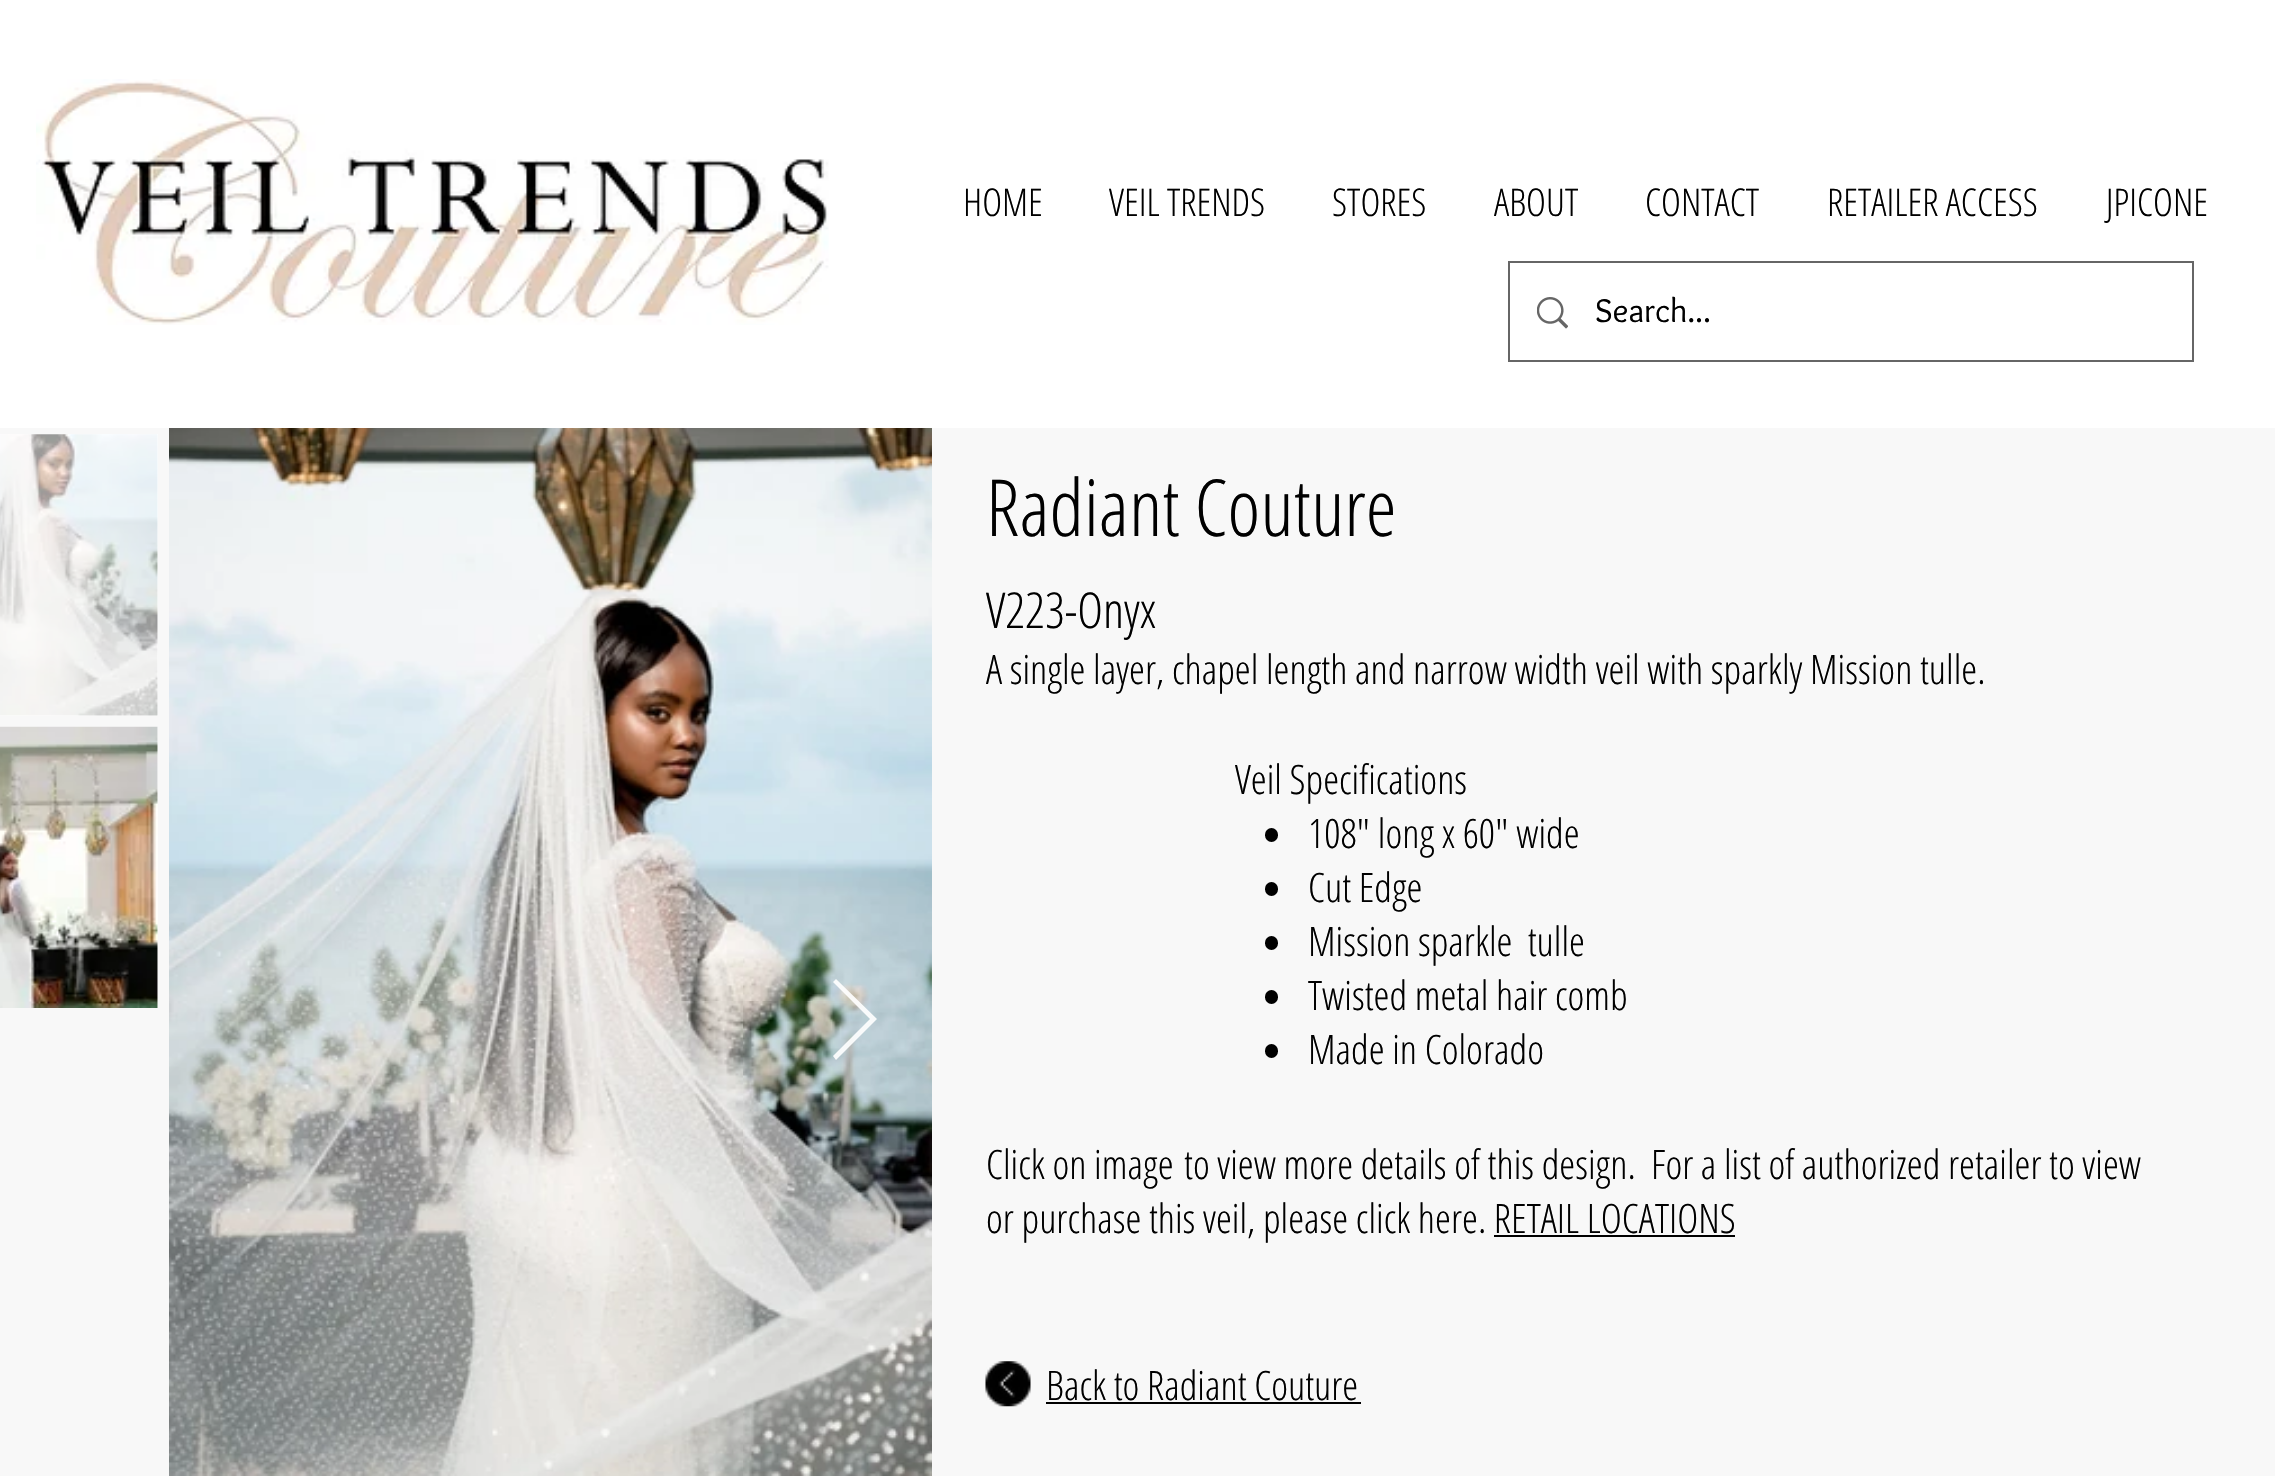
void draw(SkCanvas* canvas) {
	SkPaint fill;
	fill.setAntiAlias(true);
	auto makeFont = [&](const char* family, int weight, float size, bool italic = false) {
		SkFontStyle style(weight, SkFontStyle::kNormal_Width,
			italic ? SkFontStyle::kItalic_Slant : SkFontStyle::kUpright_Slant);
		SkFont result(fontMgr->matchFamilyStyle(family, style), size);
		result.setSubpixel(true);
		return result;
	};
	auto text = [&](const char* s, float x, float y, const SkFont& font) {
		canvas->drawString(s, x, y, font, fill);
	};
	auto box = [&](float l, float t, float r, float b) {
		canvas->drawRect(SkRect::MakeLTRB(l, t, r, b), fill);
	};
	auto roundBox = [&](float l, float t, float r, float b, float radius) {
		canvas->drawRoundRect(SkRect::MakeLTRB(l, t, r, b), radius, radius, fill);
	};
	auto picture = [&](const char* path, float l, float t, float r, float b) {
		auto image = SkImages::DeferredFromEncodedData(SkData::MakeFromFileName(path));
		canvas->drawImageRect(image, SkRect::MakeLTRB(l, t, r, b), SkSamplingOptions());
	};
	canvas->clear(0xFFF8F8F8);
	fill.setColor(0xFFFFFFFF);
	box(0, 0, 2275, 428);
	picture("image0.png", 36, 79, 829, 325);
	fill.setStyle(SkPaint::kStroke_Style);
	fill.setStrokeWidth(2);
	fill.setColor(0xFF666666);
	canvas->drawRect(SkRect::MakeLTRB(1509, 262, 2193, 361), fill);
	picture("image1.png", 1537, 297, 1568, 329);
	fill.setStyle(SkPaint::kFill_Style);
	fill.setColor(0xFFFFFFFF);
	box(0, 434, 158, 716);
	picture("image2.png", 0, 434, 158, 716);
	box(157, 727, 158, 1008);
	picture("image3.png", 0, 726, 158, 1008);
	picture("image4.png", 169, 428, 932, 1476);
	fill.setColor(0xE6FFFFFF);
	canvas->drawPath(SkPathBuilder().moveTo(833, 982).lineTo(836, 979).lineTo(877, 1019).lineTo(836, 1060).lineTo(833, 1056).lineTo(870, 1019).close().detach(), fill);
	fill.setColor(0xFF000000);
	roundBox(1265, 828, 1278, 842, 6.5f);
	roundBox(1265, 882, 1278, 896, 6.5f);
	roundBox(1265, 936, 1278, 950, 6.5f);
	roundBox(1265, 990, 1278, 1004, 6.5f);
	roundBox(1265, 1044, 1278, 1058, 6.5f);
	box(1494, 1235, 1735, 1237);
	picture("image5.png", 985, 1361, 1031, 1407);
	box(1046, 1402, 1361, 1404);
	auto font1 = makeFont("Open Sans Condensed", 300, 38.25f);
	text("HOME", 963, 216, font1);
	text("VEIL TRENDS", 1109, 216, font1);
	text("STORES", 1332, 216, font1);
	text("ABOUT", 1494, 216, font1);
	text("CONTACT", 1645, 216, font1);
	text("RETAILER ACCESS", 1827, 216, font1);
	text("JPICONE", 2106, 216, font1);
	auto font2 = makeFont("Overlock", 400, 34);
	text("Search...", 1595, 322, font2);
	auto font3 = makeFont("Open Sans Condensed", 300, 78.75f);
	text("Radiant Couture", 986, 536, font3);
	auto font4 = makeFont("Open Sans Condensed", 300, 49.5f);
	text("V223-Onyx", 986, 628, font4);
	auto font5 = makeFont("Open Sans Condensed", 300, 40.5f);
	text("A single layer, chapel length and narrow width veil with sparkly Mission tulle.", 986, 684, font5);
	text("Veil Specifications", 1235, 794, font5);
	text("108\" long x 60\" wide", 1308, 848, font5);
	text("Cut Edge", 1308, 902, font5);
	text("Mission sparkle  tulle", 1308, 956, font5);
	text("Twisted metal hair comb", 1308, 1010, font5);
	text("Made in Colorado", 1308, 1064, font5);
	text("Click on image", 986, 1179, font5);
	text("to view more details of this design.  For a list of authorized retailer to view", 1184, 1179, font5);
	text("or purchase this veil, please click here. RETAIL LOCATIONS", 986, 1233, font5);
	text("Back to Radiant Couture", 1046, 1400, font5);
}
